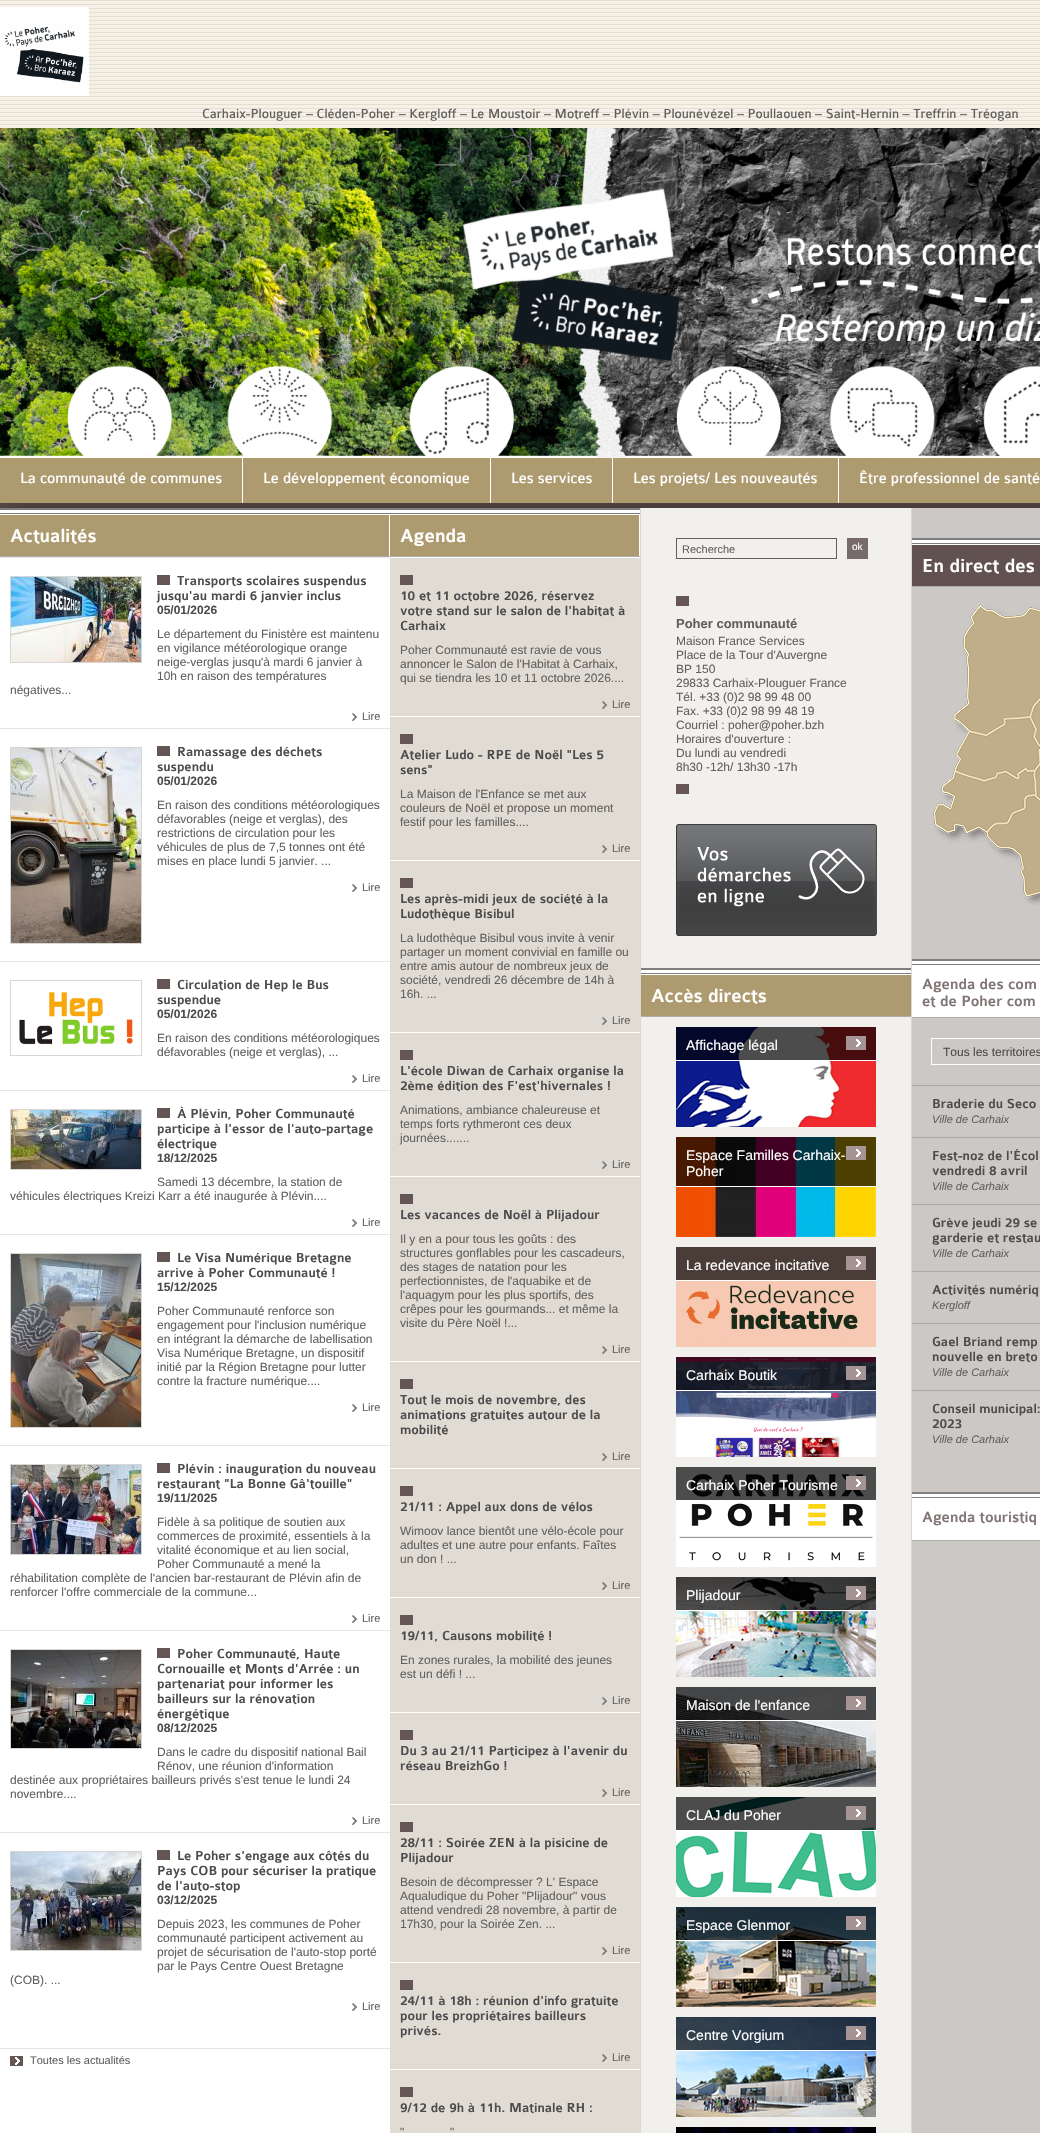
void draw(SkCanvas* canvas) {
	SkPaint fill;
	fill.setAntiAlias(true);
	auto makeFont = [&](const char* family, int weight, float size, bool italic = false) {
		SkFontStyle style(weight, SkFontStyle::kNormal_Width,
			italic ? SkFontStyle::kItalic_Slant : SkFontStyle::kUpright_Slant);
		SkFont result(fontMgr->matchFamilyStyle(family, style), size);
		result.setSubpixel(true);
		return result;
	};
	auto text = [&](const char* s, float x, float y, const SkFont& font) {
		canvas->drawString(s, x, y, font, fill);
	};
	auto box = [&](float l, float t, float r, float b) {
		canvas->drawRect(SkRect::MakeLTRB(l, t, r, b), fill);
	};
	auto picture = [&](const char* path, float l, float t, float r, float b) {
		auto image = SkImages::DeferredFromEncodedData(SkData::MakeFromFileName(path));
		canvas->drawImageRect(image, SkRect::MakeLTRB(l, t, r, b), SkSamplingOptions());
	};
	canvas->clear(0xFFFFFFFF);
	picture("image0.png", 0, 503, 1040, 508);
	picture("image1.png", 0, 0, 1040, 128);
	picture("image2.png", 0, 7, 89, 96);
	picture("image3.png", 0, 128, 1040, 458);
	fill.setColor(0x80000000);
	fill.setMaskFilter(SkMaskFilter::MakeBlur(kNormal_SkBlurStyle, 15));
	canvas->drawRect(SkRect::MakeLTRB(0, 508, 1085, 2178), fill);
	fill.setMaskFilter(nullptr);
	fill.setColor(0xFFAD9A6F);
	box(0, 458, 1040, 503);
	fill.setColor(0xFFFFFFFF);
	box(242, 458, 243, 503);
	box(490, 458, 491, 503);
	box(612, 458, 613, 503);
	box(838, 458, 839, 503);
	picture("image4.png", 0, 510, 390, 2133);
	picture("image5.png", 0, 508, 390, 514);
	fill.setColor(0xFFAD9A6F);
	box(0, 515, 389, 556);
	fill.setColor(0xFFAEAEAD);
	box(0, 556, 390, 557);
	fill.setColor(0xFFE5E5E5);
	box(0, 557, 390, 558);
	fill.setStyle(SkPaint::kStroke_Style);
	fill.setStrokeWidth(1);
	fill.setColor(0xFFD9D6D6);
	canvas->drawRect(SkRect::MakeLTRB(10.5f, 576.5f, 141.5f, 662.5f), fill);
	picture("image6.png", 11, 577, 141, 662);
	fill.setStyle(SkPaint::kFill_Style);
	fill.setColor(0xFF665555);
	box(157, 575, 170, 585);
	picture("image7.png", 352, 713, 357, 721);
	fill.setColor(0xFFE5E5E5);
	box(0, 728, 390, 729);
	fill.setStyle(SkPaint::kStroke_Style);
	fill.setColor(0xFFD9D6D6);
	canvas->drawRect(SkRect::MakeLTRB(10.5f, 747.5f, 141.5f, 943.5f), fill);
	picture("image8.png", 11, 748, 141, 943);
	fill.setStyle(SkPaint::kFill_Style);
	fill.setColor(0xFF665555);
	box(157, 746, 170, 756);
	picture("image7.png", 352, 884, 357, 892);
	fill.setColor(0xFFE5E5E5);
	box(0, 961, 390, 962);
	fill.setStyle(SkPaint::kStroke_Style);
	fill.setColor(0xFFD9D6D6);
	canvas->drawRect(SkRect::MakeLTRB(10.5f, 980.5f, 141.5f, 1055.5f), fill);
	picture("image9.png", 19, 992, 133, 1045);
	fill.setStyle(SkPaint::kFill_Style);
	fill.setColor(0xFF665555);
	box(157, 979, 170, 989);
	picture("image7.png", 352, 1075, 357, 1083);
	fill.setColor(0xFFE5E5E5);
	box(0, 1090, 390, 1091);
	fill.setStyle(SkPaint::kStroke_Style);
	fill.setColor(0xFFD9D6D6);
	canvas->drawRect(SkRect::MakeLTRB(10.5f, 1109.5f, 141.5f, 1169.5f), fill);
	picture("image10.png", 11, 1110, 141, 1169);
	fill.setStyle(SkPaint::kFill_Style);
	fill.setColor(0xFF665555);
	box(157, 1108, 170, 1118);
	picture("image7.png", 352, 1219, 357, 1227);
	fill.setColor(0xFFE5E5E5);
	box(0, 1234, 390, 1235);
	fill.setStyle(SkPaint::kStroke_Style);
	fill.setColor(0xFFD9D6D6);
	canvas->drawRect(SkRect::MakeLTRB(10.5f, 1253.5f, 141.5f, 1427.5f), fill);
	picture("image11.png", 11, 1254, 141, 1427);
	fill.setStyle(SkPaint::kFill_Style);
	fill.setColor(0xFF665555);
	box(157, 1252, 170, 1262);
	picture("image7.png", 352, 1404, 357, 1412);
	fill.setColor(0xFFE5E5E5);
	box(0, 1445, 390, 1446);
	fill.setStyle(SkPaint::kStroke_Style);
	fill.setColor(0xFFD9D6D6);
	canvas->drawRect(SkRect::MakeLTRB(10.5f, 1464.5f, 141.5f, 1554.5f), fill);
	picture("image12.png", 11, 1465, 141, 1554);
	fill.setStyle(SkPaint::kFill_Style);
	fill.setColor(0xFF665555);
	box(157, 1463, 170, 1473);
	picture("image7.png", 352, 1615, 357, 1623);
	fill.setColor(0xFFE5E5E5);
	box(0, 1630, 390, 1631);
	fill.setStyle(SkPaint::kStroke_Style);
	fill.setColor(0xFFD9D6D6);
	canvas->drawRect(SkRect::MakeLTRB(10.5f, 1649.5f, 141.5f, 1748.5f), fill);
	picture("image13.png", 11, 1650, 141, 1748);
	fill.setStyle(SkPaint::kFill_Style);
	fill.setColor(0xFF665555);
	box(157, 1648, 170, 1658);
	picture("image7.png", 352, 1817, 357, 1825);
	fill.setColor(0xFFE5E5E5);
	box(0, 1832, 390, 1833);
	fill.setStyle(SkPaint::kStroke_Style);
	fill.setColor(0xFFD9D6D6);
	canvas->drawRect(SkRect::MakeLTRB(10.5f, 1851.5f, 141.5f, 1950.5f), fill);
	picture("image14.png", 11, 1852, 141, 1950);
	fill.setStyle(SkPaint::kFill_Style);
	fill.setColor(0xFF665555);
	box(157, 1850, 170, 1860);
	picture("image7.png", 352, 2003, 357, 2011);
	fill.setColor(0xFFE5E5E5);
	box(0, 2048, 390, 2049);
	picture("image15.png", 10, 2056, 23, 2066);
	fill.setColor(0xFFE1DCD3);
	box(390, 558, 640, 2133);
	fill.setColor(0xFFFFFFFF);
	box(390, 510, 640, 515);
	picture("image16.png", 390, 508, 640, 514);
	fill.setColor(0xFFAD9A6F);
	box(390, 515, 639, 556);
	fill.setColor(0xFFFFFFFF);
	box(639, 515, 640, 557);
	fill.setColor(0xFFAEAEAD);
	box(390, 556, 640, 557);
	fill.setColor(0xFFFFFFFF);
	box(390, 557, 640, 558);
	fill.setColor(0xFF665555);
	box(400, 575, 413, 585);
	picture("image17.png", 602, 701, 607, 709);
	fill.setColor(0xFFFFFFFF);
	box(390, 716, 640, 717);
	fill.setColor(0xFF665555);
	box(400, 734, 413, 744);
	picture("image17.png", 602, 845, 607, 853);
	fill.setColor(0xFFFFFFFF);
	box(390, 860, 640, 861);
	fill.setColor(0xFF665555);
	box(400, 878, 413, 888);
	picture("image17.png", 602, 1017, 607, 1025);
	fill.setColor(0xFFFFFFFF);
	box(390, 1032, 640, 1033);
	fill.setColor(0xFF665555);
	box(400, 1050, 413, 1060);
	picture("image17.png", 602, 1161, 607, 1169);
	fill.setColor(0xFFFFFFFF);
	box(390, 1176, 640, 1177);
	fill.setColor(0xFF665555);
	box(400, 1194, 413, 1204);
	picture("image17.png", 602, 1346, 607, 1354);
	fill.setColor(0xFFFFFFFF);
	box(390, 1361, 640, 1362);
	fill.setColor(0xFF665555);
	box(400, 1379, 413, 1389);
	picture("image17.png", 602, 1453, 607, 1461);
	fill.setColor(0xFFFFFFFF);
	box(390, 1468, 640, 1469);
	fill.setColor(0xFF665555);
	box(400, 1486, 413, 1496);
	picture("image17.png", 602, 1582, 607, 1590);
	fill.setColor(0xFFFFFFFF);
	box(390, 1597, 640, 1598);
	fill.setColor(0xFF665555);
	box(400, 1615, 413, 1625);
	picture("image17.png", 602, 1697, 607, 1705);
	fill.setColor(0xFFFFFFFF);
	box(390, 1712, 640, 1713);
	fill.setColor(0xFF665555);
	box(400, 1730, 413, 1740);
	picture("image17.png", 602, 1789, 607, 1797);
	fill.setColor(0xFFFFFFFF);
	box(390, 1804, 640, 1805);
	fill.setColor(0xFF665555);
	box(400, 1822, 413, 1832);
	picture("image17.png", 602, 1947, 607, 1955);
	fill.setColor(0xFFFFFFFF);
	box(390, 1962, 640, 1963);
	fill.setColor(0xFF665555);
	box(400, 1980, 413, 1990);
	picture("image17.png", 602, 2054, 607, 2062);
	fill.setColor(0xFFFFFFFF);
	box(390, 2069, 640, 2070);
	fill.setColor(0xFF665555);
	box(400, 2087, 413, 2097);
	fill.setColor(0xFFF2F0EC);
	box(641, 508, 911, 2133);
	fill.setColor(0xFFD9D8D4);
	box(640, 508, 641, 2133);
	fill.setStyle(SkPaint::kStroke_Style);
	fill.setColor(0xFF61605E);
	canvas->drawRect(SkRect::MakeLTRB(676.5f, 538.5f, 836.5f, 558.5f), fill);
	fill.setStyle(SkPaint::kFill_Style);
	fill.setColor(0xFF776A6A);
	box(847, 538, 868, 559);
	fill.setColor(0xFF665555);
	box(676, 784, 689, 794);
	box(676, 596, 689, 606);
	picture("image18.png", 676, 824, 877, 936);
	fill.setColor(0xFFFFFFFF);
	box(641, 970, 911, 975);
	picture("image19.png", 641, 968, 911, 974);
	fill.setColor(0xFFAD9A6F);
	box(641, 975, 911, 1016);
	fill.setColor(0xFFAEAEAD);
	box(641, 1016, 911, 1017);
	picture("image20.png", 676, 1027, 876, 1127);
	fill.setColor(0xB3000000);
	box(676, 1027, 876, 1060);
	picture("image21.png", 846, 1036, 866, 1050);
	fill.setColor(0xFFFFFFFF);
	box(676, 1060, 876, 1061);
	picture("image22.png", 676, 1137, 876, 1237);
	fill.setColor(0xB3000000);
	box(676, 1137, 876, 1186);
	picture("image21.png", 846, 1146, 866, 1160);
	fill.setColor(0xFFFFFFFF);
	box(676, 1186, 876, 1187);
	fill.setColor(0xFF4A3C36);
	box(676, 1247, 876, 1280);
	picture("image21.png", 846, 1256, 866, 1270);
	fill.setColor(0xFFFFFFFF);
	box(676, 1280, 876, 1281);
	picture("image23.png", 676, 1281, 876, 1347);
	picture("image24.png", 676, 1357, 876, 1457);
	fill.setColor(0xB3000000);
	box(676, 1357, 876, 1390);
	picture("image21.png", 846, 1366, 866, 1380);
	fill.setColor(0xFFFFFFFF);
	box(676, 1390, 876, 1391);
	picture("image25.png", 676, 1467, 876, 1567);
	fill.setColor(0xB3000000);
	box(676, 1467, 876, 1500);
	picture("image21.png", 846, 1476, 866, 1490);
	picture("image26.png", 676, 1577, 876, 1677);
	box(676, 1577, 876, 1610);
	picture("image21.png", 846, 1586, 866, 1600);
	fill.setColor(0xFFFFFFFF);
	box(676, 1610, 876, 1611);
	picture("image27.png", 676, 1687, 876, 1787);
	fill.setColor(0xB3000000);
	box(676, 1687, 876, 1720);
	picture("image21.png", 846, 1696, 866, 1710);
	fill.setColor(0xFFFFFFFF);
	box(676, 1720, 876, 1721);
	picture("image28.png", 676, 1797, 876, 1897);
	fill.setColor(0xB3000000);
	box(676, 1797, 876, 1830);
	picture("image21.png", 846, 1806, 866, 1820);
	fill.setColor(0xFFFFFFFF);
	box(811, 1830, 876, 1831);
	picture("image29.png", 676, 1907, 876, 2007);
	fill.setColor(0xB3000000);
	box(676, 1907, 876, 1940);
	picture("image21.png", 846, 1916, 866, 1930);
	fill.setColor(0xFFFFFFFF);
	box(676, 1940, 876, 1941);
	picture("image30.png", 676, 2017, 876, 2117);
	fill.setColor(0xB3000000);
	box(676, 2017, 876, 2050);
	picture("image21.png", 846, 2026, 866, 2040);
	fill.setColor(0xFFFFFFFF);
	box(676, 2050, 876, 2051);
	picture("image31.png", 676, 2127, 876, 2133);
	fill.setColor(0xFFCCC8C5);
	box(912, 508, 1040, 2133);
	fill.setColor(0xFFD9D8D4);
	box(911, 508, 912, 2133);
	fill.setColor(0xFFFFFFFF);
	box(912, 540, 1040, 545);
	picture("image32.png", 912, 538, 1040, 544);
	fill.setColor(0xFF625151);
	box(912, 545, 1040, 586);
	fill.setColor(0xFFAEAEAD);
	box(912, 586, 1040, 587);
	picture("image33.png", 933, 604, 1040, 905);
	fill.setColor(0xFFFFFFFF);
	box(912, 961, 1040, 1017);
	picture("image32.png", 912, 959, 1040, 965);
	fill.setColor(0xFFAEAEAD);
	box(912, 1017, 1040, 1018);
	fill.setStyle(SkPaint::kStroke_Style);
	fill.setColor(0xFFFFFFFF);
	canvas->drawRect(SkRect::MakeLTRB(931.5f, 1038.5f, 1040.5f, 1064.5f), fill);
	fill.setColor(0xFFCCCCCC);
	canvas->drawRoundRect(SkRect::MakeLTRB(932.5f, 1039.5f, 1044.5f, 1063.5f), 3.5f, 3.5f, fill);
	fill.setStyle(SkPaint::kFill_Style);
	fill.setColor(0xFFADA8A8);
	box(912, 1085, 1040, 1086);
	box(912, 1137, 1040, 1138);
	box(912, 1204, 1040, 1205);
	box(912, 1271, 1040, 1272);
	box(912, 1323, 1040, 1324);
	box(912, 1390, 1040, 1391);
	fill.setColor(0xFFFFFFFF);
	box(912, 1494, 1040, 1540);
	picture("image32.png", 912, 1492, 1040, 1498);
	fill.setColor(0xFFAEAEAD);
	box(912, 1540, 1040, 1541);
	auto font1 = makeFont("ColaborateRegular", 400, 14);
	fill.setColor(0xFF61605E);
	text("Carhaix-Plouguer – Cléden-Poher – Kergloff – Le Moustoir – Motreff – Plévin – Plounévézel – Poullaouen – Saint-Hernin – Treffrin – Tréogan", 202, 118, font1);
	auto font2 = makeFont("ColaborateRegular", 400, 16);
	fill.setColor(0xFFFFFFFF);
	text("La communauté de communes", 20, 483, font2);
	text("Le développement économique", 263, 483, font2);
	text("Les services", 511, 483, font2);
	text("Les projets/ Les nouveautés", 633, 483, font2);
	text("Être professionnel de santé", 859, 483, font2);
	auto font3 = makeFont("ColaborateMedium", 500, 20);
	text("Actualités", 10, 542, font3);
	auto font4 = makeFont("ColaborateMedium", 500, 14);
	fill.setColor(0xFF4C4C4C);
	text("Transports scolaires suspendus", 177, 585, font4);
	text("jusqu'au mardi 6 janvier inclus", 157, 600, font4);
	auto font5 = makeFont("Liberation Sans", 700, 12);
	text("05/01/2026", 157, 614, font5);
	auto font6 = makeFont("Liberation Sans", 400, 12);
	fill.setColor(0xFF61605E);
	text("Le département du Finistère est maintenu", 157, 638, font6);
	text("en vigilance météorologique orange", 157, 652, font6);
	text("neige-verglas jusqu'à mardi 6 janvier à", 157, 666, font6);
	text("10h en raison des températures", 157, 680, font6);
	text("négatives...", 10, 694, font6);
	auto font7 = makeFont("Liberation Sans", 400, 11);
	text("Lire", 362, 720, font7);
	fill.setColor(0xFF4C4C4C);
	text("Ramassage des déchets", 177, 756, font4);
	text("suspendu", 157, 771, font4);
	text("05/01/2026", 157, 785, font5);
	fill.setColor(0xFF61605E);
	text("En raison des conditions météorologiques", 157, 809, font6);
	text("défavorables (neige et verglas), des", 157, 823, font6);
	text("restrictions de circulation pour les", 157, 837, font6);
	text("véhicules de plus de 7,5 tonnes ont été", 157, 851, font6);
	text("mises en place lundi 5 janvier. ...", 157, 865, font6);
	text("Lire", 362, 891, font7);
	fill.setColor(0xFF4C4C4C);
	text("Circulation de Hep le Bus", 177, 989, font4);
	text("suspendue", 157, 1004, font4);
	text("05/01/2026", 157, 1018, font5);
	fill.setColor(0xFF61605E);
	text("En raison des conditions météorologiques", 157, 1042, font6);
	text("défavorables (neige et verglas), ...", 157, 1056, font6);
	text("Lire", 362, 1082, font7);
	fill.setColor(0xFF4C4C4C);
	text("À Plévin, Poher Communauté", 177, 1118, font4);
	text("participe à l'essor de l'auto-partage", 157, 1133, font4);
	text("électrique", 157, 1148, font4);
	text("18/12/2025", 157, 1162, font5);
	fill.setColor(0xFF61605E);
	text("Samedi 13 décembre, la station de", 157, 1186, font6);
	text("véhicules électriques Kreizi Karr a été inaugurée à Plévin....", 10, 1200, font6);
	text("Lire", 362, 1226, font7);
	fill.setColor(0xFF4C4C4C);
	text("Le Visa Numérique Bretagne", 177, 1262, font4);
	text("arrive à Poher Communauté !", 157, 1277, font4);
	text("15/12/2025", 157, 1291, font5);
	fill.setColor(0xFF61605E);
	text("Poher Communauté renforce son", 157, 1315, font6);
	text("engagement pour l'inclusion numérique", 157, 1329, font6);
	text("en intégrant la démarche de labellisation", 157, 1343, font6);
	text("Visa Numérique Bretagne, un dispositif", 157, 1357, font6);
	text("initié par la Région Bretagne pour lutter", 157, 1371, font6);
	text("contre la fracture numérique....", 157, 1385, font6);
	text("Lire", 362, 1411, font7);
	fill.setColor(0xFF4C4C4C);
	text("Plévin : inauguration du nouveau", 177, 1473, font4);
	text("restaurant \"La Bonne Gâ'touille\"", 157, 1488, font4);
	text("19/11/2025", 157, 1502, font5);
	fill.setColor(0xFF61605E);
	text("Fidèle à sa politique de soutien aux", 157, 1526, font6);
	text("commerces de proximité, essentiels à la", 157, 1540, font6);
	text("vitalité économique et au lien social,", 157, 1554, font6);
	text("Poher Communauté a mené la", 157, 1568, font6);
	text("réhabilitation complète de l'ancien bar-restaurant de Plévin afin de", 10, 1582, font6);
	text("renforcer l'offre commerciale de la commune...", 10, 1596, font6);
	text("Lire", 362, 1622, font7);
	fill.setColor(0xFF4C4C4C);
	text("Poher Communauté, Haute", 177, 1658, font4);
	text("Cornouaille et Monts d'Arrée : un", 157, 1673, font4);
	text("partenariat pour informer les", 157, 1688, font4);
	text("bailleurs sur la rénovation", 157, 1703, font4);
	text("énergétique", 157, 1718, font4);
	text("08/12/2025", 157, 1732, font5);
	fill.setColor(0xFF61605E);
	text("Dans le cadre du dispositif national Bail", 157, 1756, font6);
	text("Rénov, une réunion d'information", 157, 1770, font6);
	text("destinée aux propriétaires bailleurs privés s'est tenue le lundi 24", 10, 1784, font6);
	text("novembre....", 10, 1798, font6);
	text("Lire", 362, 1824, font7);
	fill.setColor(0xFF4C4C4C);
	text("Le Poher s'engage aux côtés du", 177, 1860, font4);
	text("Pays COB pour sécuriser la pratique", 157, 1875, font4);
	text("de l'auto-stop", 157, 1890, font4);
	text("03/12/2025", 157, 1904, font5);
	fill.setColor(0xFF61605E);
	text("Depuis 2023, les communes de Poher", 157, 1928, font6);
	text("communauté participent activement au", 157, 1942, font6);
	text("projet de sécurisation de l'auto-stop porté", 157, 1956, font6);
	text("par le Pays Centre Ouest Bretagne", 157, 1970, font6);
	text("(COB). ...", 10, 1984, font6);
	text("Lire", 362, 2010, font7);
	text("Toutes les actualités", 30, 2064, font7);
	fill.setColor(0xFFFFFFFF);
	text("Agenda", 400, 542, font3);
	fill.setColor(0xFF4C4C4C);
	text("10 et 11 octobre 2026, réservez", 400, 600, font4);
	text("votre stand sur le salon de l'habitat à", 400, 615, font4);
	text("Carhaix", 400, 630, font4);
	fill.setColor(0xFF61605E);
	text("Poher Communauté est ravie de vous", 400, 654, font6);
	text("annoncer le Salon de l'Habitat à Carhaix,", 400, 668, font6);
	text("qui se tiendra les 10 et 11 octobre 2026....", 400, 682, font6);
	text("Lire", 612, 708, font7);
	fill.setColor(0xFF4C4C4C);
	text("Atelier Ludo - RPE de Noël \"Les 5", 400, 759, font4);
	text("sens\"", 400, 774, font4);
	fill.setColor(0xFF61605E);
	text("La Maison de l'Enfance se met aux", 400, 798, font6);
	text("couleurs de Noël et propose un moment", 400, 812, font6);
	text("festif pour les familles....", 400, 826, font6);
	text("Lire", 612, 852, font7);
	fill.setColor(0xFF4C4C4C);
	text("Les après-midi jeux de société à la", 400, 903, font4);
	text("Ludothèque Bisibul", 400, 918, font4);
	fill.setColor(0xFF61605E);
	text("La ludothèque Bisibul vous invite à venir", 400, 942, font6);
	text("partager un moment convivial en famille ou", 400, 956, font6);
	text("entre amis autour de nombreux jeux de", 400, 970, font6);
	text("société, vendredi 26 décembre de 14h à", 400, 984, font6);
	text("16h. ...", 400, 998, font6);
	text("Lire", 612, 1024, font7);
	fill.setColor(0xFF4C4C4C);
	text("L'école Diwan de Carhaix organise la", 400, 1075, font4);
	text("2ème édition des F'est'hivernales !", 400, 1090, font4);
	fill.setColor(0xFF61605E);
	text("Animations, ambiance chaleureuse et", 400, 1114, font6);
	text("temps forts rythmeront ces deux", 400, 1128, font6);
	text("journées.......", 400, 1142, font6);
	text("Lire", 612, 1168, font7);
	fill.setColor(0xFF4C4C4C);
	text("Les vacances de Noël à Plijadour", 400, 1219, font4);
	fill.setColor(0xFF61605E);
	text("Il y en a pour tous les goûts : des", 400, 1243, font6);
	text("structures gonflables pour les cascadeurs,", 400, 1257, font6);
	text("des stages de natation pour les", 400, 1271, font6);
	text("perfectionnistes, de l'aquabike et de", 400, 1285, font6);
	text("l'aquagym pour les plus sportifs, des", 400, 1299, font6);
	text("crêpes pour les gourmands... et même la", 400, 1313, font6);
	text("visite du Père Noël !...", 400, 1327, font6);
	text("Lire", 612, 1353, font7);
	fill.setColor(0xFF4C4C4C);
	text("Tout le mois de novembre, des", 400, 1404, font4);
	text("animations gratuites autour de la", 400, 1419, font4);
	text("mobilité", 400, 1434, font4);
	fill.setColor(0xFF61605E);
	text("Lire", 612, 1460, font7);
	fill.setColor(0xFF4C4C4C);
	text("21/11 : Appel aux dons de vélos", 400, 1511, font4);
	fill.setColor(0xFF61605E);
	text("Wimoov lance bientôt une vélo-école pour", 400, 1535, font6);
	text("adultes et une autre pour enfants. Faîtes", 400, 1549, font6);
	text("un don ! ...", 400, 1563, font6);
	text("Lire", 612, 1589, font7);
	fill.setColor(0xFF4C4C4C);
	text("19/11, Causons mobilité !", 400, 1640, font4);
	fill.setColor(0xFF61605E);
	text("En zones rurales, la mobilité des jeunes", 400, 1664, font6);
	text("est un défi ! ...", 400, 1678, font6);
	text("Lire", 612, 1704, font7);
	fill.setColor(0xFF4C4C4C);
	text("Du 3 au 21/11 Participez à l'avenir du", 400, 1755, font4);
	text("réseau BreizhGo !", 400, 1770, font4);
	fill.setColor(0xFF61605E);
	text("Lire", 612, 1796, font7);
	fill.setColor(0xFF4C4C4C);
	text("28/11 : Soirée ZEN à la pisicine de", 400, 1847, font4);
	text("Plijadour", 400, 1862, font4);
	fill.setColor(0xFF61605E);
	text("Besoin de décompresser ? L' Espace", 400, 1886, font6);
	text("Aqualudique du Poher \"Plijadour\" vous", 400, 1900, font6);
	text("attend vendredi 28 novembre, à partir de", 400, 1914, font6);
	text("17h30, pour la Soirée Zen. ...", 400, 1928, font6);
	text("Lire", 612, 1954, font7);
	fill.setColor(0xFF4C4C4C);
	text("24/11 à 18h : réunion d'info gratuite", 400, 2005, font4);
	text("pour les propriétaires bailleurs", 400, 2020, font4);
	text("privés.", 400, 2035, font4);
	fill.setColor(0xFF61605E);
	text("Lire", 612, 2061, font7);
	fill.setColor(0xFF4C4C4C);
	text("9/12 de 9h à 11h. Matinale RH :", 400, 2112, font4);
	fill.setColor(0xFF61605E);
	text("\"", 400, 2136, font6);
	text("\"", 450, 2136, font6);
	text("Recherche", 682, 553, font7);
	auto font8 = makeFont("Liberation Sans", 400, 10);
	fill.setColor(0xFFFFFFFF);
	text("ok", 852, 550, font8);
	auto font9 = makeFont("Liberation Sans", 700, 13);
	fill.setColor(0xFF61605E);
	text("Poher communauté", 676, 628, font9);
	text("Maison France Services", 676, 645, font6);
	text("Place de la Tour d'Auvergne", 676, 659, font6);
	text("BP 150", 676, 673, font6);
	text("29833 Carhaix-Plouguer France", 676, 687, font6);
	text("Tél. +33 (0)2 98 99 48 00", 676, 701, font6);
	text("Fax. +33 (0)2 98 99 48 19", 676, 715, font6);
	text("Courriel : poher@poher.bzh", 676, 729, font6);
	text("Horaires d'ouverture :", 676, 743, font6);
	text("Du lundi au vendredi", 676, 757, font6);
	text("8h30 -12h/ 13h30 -17h", 676, 771, font6);
	fill.setColor(0xFFFFFFFF);
	text("Accès directs", 651, 1002, font3);
	auto font10 = makeFont("Liberation Sans", 400, 14);
	text("Affichage légal", 686, 1050, font10);
	text("Espace Familles Carhaix-", 686, 1160, font10);
	text("Poher", 686, 1176, font10);
	text("La redevance incitative", 686, 1270, font10);
	text("Carhaix Boutik", 686, 1380, font10);
	text("Carhaix Poher Tourisme", 686, 1490, font10);
	text("Plijadour", 686, 1600, font10);
	text("Maison de l'enfance", 686, 1710, font10);
	text("CLAJ du Poher", 686, 1820, font10);
	text("Espace Glenmor", 686, 1930, font10);
	text("Centre Vorgium", 686, 2040, font10);
	text("En direct des", 922, 572, font3);
	auto font11 = makeFont("ColaborateMedium", 500, 16);
	fill.setColor(0xFF817474);
	text("Agenda des com", 922, 989, font11);
	text("et de Poher com", 922, 1006, font11);
	fill.setColor(0xFF4C4C4C);
	text("Tous les territoires", 943, 1056, font6);
	text("Braderie du Seco", 932, 1108, font4);
	auto font12 = makeFont("Liberation Sans", 400, 11, true);
	fill.setColor(0xFF61605E);
	text("Ville de Carhaix", 932, 1123, font12);
	fill.setColor(0xFF4C4C4C);
	text("Fest-noz de l'Écol", 932, 1160, font4);
	text("vendredi 8 avril", 932, 1175, font4);
	fill.setColor(0xFF61605E);
	text("Ville de Carhaix", 932, 1190, font12);
	fill.setColor(0xFF4C4C4C);
	text("Grève jeudi 29 se", 932, 1227, font4);
	text("garderie et restau", 932, 1242, font4);
	fill.setColor(0xFF61605E);
	text("Ville de Carhaix", 932, 1257, font12);
	fill.setColor(0xFF4C4C4C);
	text("Activités numériq", 932, 1294, font4);
	fill.setColor(0xFF61605E);
	text("Kergloff", 932, 1309, font12);
	fill.setColor(0xFF4C4C4C);
	text("Gael Briand remp", 932, 1346, font4);
	text("nouvelle en breto", 932, 1361, font4);
	fill.setColor(0xFF61605E);
	text("Ville de Carhaix", 932, 1376, font12);
	fill.setColor(0xFF4C4C4C);
	text("Conseil municipal:", 932, 1413, font4);
	text("2023", 932, 1428, font4);
	fill.setColor(0xFF61605E);
	text("Ville de Carhaix", 932, 1443, font12);
	fill.setColor(0xFF817474);
	text("Agenda touristiq", 922, 1522, font11);
}
